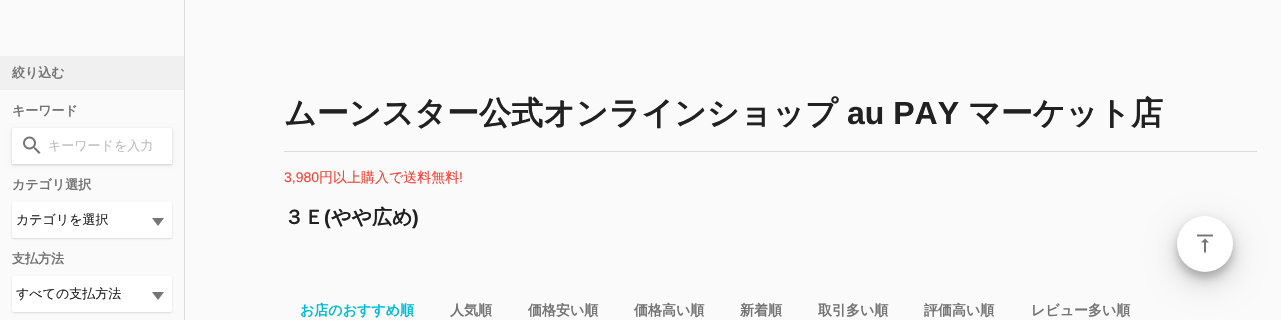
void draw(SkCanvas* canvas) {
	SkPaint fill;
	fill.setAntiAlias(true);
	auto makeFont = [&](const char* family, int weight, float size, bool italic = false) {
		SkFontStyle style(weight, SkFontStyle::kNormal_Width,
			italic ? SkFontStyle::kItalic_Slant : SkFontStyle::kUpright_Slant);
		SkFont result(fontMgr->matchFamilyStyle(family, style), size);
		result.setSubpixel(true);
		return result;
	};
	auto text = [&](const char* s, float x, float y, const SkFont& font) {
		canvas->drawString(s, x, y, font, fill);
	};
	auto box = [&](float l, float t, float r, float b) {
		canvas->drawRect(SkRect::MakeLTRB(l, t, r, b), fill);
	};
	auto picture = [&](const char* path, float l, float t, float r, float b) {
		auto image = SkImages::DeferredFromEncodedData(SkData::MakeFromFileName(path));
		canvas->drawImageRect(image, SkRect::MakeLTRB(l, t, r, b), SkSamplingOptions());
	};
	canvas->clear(0xFFFAFAFA);
	fill.setColor(0xFFDCDCDC);
	box(184, 0, 185, 320);
	fill.setColor(0xFFF0F0F0);
	box(0, 56, 184, 90);
	fill.setColor(0x0F000000);
	fill.setMaskFilter(SkMaskFilter::MakeBlur(kNormal_SkBlurStyle, 2));
	canvas->drawRect(SkRect::MakeLTRB(12, 129, 172, 165), fill);
	fill.setMaskFilter(nullptr);
	fill.setColor(0x1F000000);
	fill.setMaskFilter(SkMaskFilter::MakeBlur(kNormal_SkBlurStyle, 1));
	canvas->drawRect(SkRect::MakeLTRB(12, 129, 172, 165), fill);
	fill.setMaskFilter(nullptr);
	fill.setColor(0xFFFFFFFF);
	box(12, 128, 172, 164);
	picture("image0.png", 23, 136, 41, 154);
	box(12, 202, 172, 238);
	fill.setColor(0xFF757575);
	canvas->drawPath(SkPathBuilder().moveTo(152, 218).lineTo(164, 218).lineTo(158, 226).close().detach(), fill);
	canvas->save();
	canvas->clipPath(SkPathBuilder(SkPathFillType::kEvenOdd).moveTo(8, 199).lineTo(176, 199).lineTo(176, 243).lineTo(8, 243).close().moveTo(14, 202).lineTo(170, 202).cubicTo(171, 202, 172, 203, 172, 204).lineTo(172, 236).cubicTo(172, 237, 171, 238, 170, 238).lineTo(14, 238).cubicTo(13, 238, 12, 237, 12, 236).lineTo(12, 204).cubicTo(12, 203, 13, 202, 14, 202).close().detach(), true);
	fill.setColor(0x1F000000);
	fill.setMaskFilter(SkMaskFilter::MakeBlur(kNormal_SkBlurStyle, 1));
	canvas->drawRoundRect(SkRect::MakeLTRB(12, 203, 172, 239), 2, 2, fill);
	fill.setMaskFilter(nullptr);
	canvas->restore();
	fill.setColor(0xFFFFFFFF);
	box(12, 276, 172, 312);
	fill.setColor(0xFF757575);
	canvas->drawPath(SkPathBuilder().moveTo(152, 292).lineTo(164, 292).lineTo(158, 300).close().detach(), fill);
	canvas->save();
	canvas->clipPath(SkPathBuilder(SkPathFillType::kEvenOdd).moveTo(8, 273).lineTo(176, 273).lineTo(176, 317).lineTo(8, 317).close().moveTo(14, 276).lineTo(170, 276).cubicTo(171, 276, 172, 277, 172, 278).lineTo(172, 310).cubicTo(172, 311, 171, 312, 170, 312).lineTo(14, 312).cubicTo(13, 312, 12, 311, 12, 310).lineTo(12, 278).cubicTo(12, 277, 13, 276, 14, 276).close().detach(), true);
	fill.setColor(0x1F000000);
	fill.setMaskFilter(SkMaskFilter::MakeBlur(kNormal_SkBlurStyle, 1));
	canvas->drawRoundRect(SkRect::MakeLTRB(12, 277, 172, 313), 2, 2, fill);
	fill.setMaskFilter(nullptr);
	canvas->restore();
	fill.setColor(0xFFDCDCDC);
	box(284, 151, 1257, 152);
	fill.setColor(0x30000000);
	fill.setMaskFilter(SkMaskFilter::MakeBlur(kNormal_SkBlurStyle, 15));
	canvas->drawRoundRect(SkRect::MakeLTRB(1177, 226, 1233, 282), 28, 28, fill);
	fill.setMaskFilter(nullptr);
	fill.setColor(0x3B000000);
	fill.setMaskFilter(SkMaskFilter::MakeBlur(kNormal_SkBlurStyle, 5));
	canvas->drawRoundRect(SkRect::MakeLTRB(1177, 222, 1233, 278), 28, 28, fill);
	fill.setMaskFilter(nullptr);
	fill.setColor(0xFFFFFFFF);
	canvas->drawCircle(1205, 244, 28, fill);
	picture("image1.png", 1197, 234, 1213, 253);
	auto font1 = makeFont("WenQuanYi Zen Hei", 700, 13);
	fill.setColor(0xFF737373);
	text("絞り込む", 12, 77, font1);
	text("キーワード", 12, 115, font1);
	auto font2 = makeFont("WenQuanYi Zen Hei", 500, 13);
	fill.setColor(0xFFBDBDBD);
	text("キーワードを入力", 48, 150, font2);
	fill.setColor(0xFF737373);
	text("カテゴリ選択", 12, 189, font1);
	fill.setColor(0xFF212121);
	text("カテゴリを選択", 16, 224, font2);
	fill.setColor(0xFF737373);
	text("支払方法", 12, 263, font1);
	fill.setColor(0xFF212121);
	text("すべての支払方法", 16, 298, font2);
	auto font3 = makeFont("WenQuanYi Zen Hei", 700, 32);
	text("ムーンスター公式オンラインショップ", 284, 124, font3);
	auto font4 = makeFont("Liberation Sans", 700, 32);
	text("au PAY", 847, 124, font4);
	text("マーケット店", 968, 124, font3);
	auto font5 = makeFont("Liberation Sans", 400, 14);
	fill.setColor(0xFFF44336);
	text("3,980", 284, 182, font5);
	auto font6 = makeFont("WenQuanYi Zen Hei", 500, 14);
	text("円以上購入で送料無料", 319, 182, font6);
	text("!", 459, 182, font5);
	auto font7 = makeFont("WenQuanYi Zen Hei", 700, 20);
	fill.setColor(0xFF212121);
	text("３Ｅ", 284, 224, font7);
	auto font8 = makeFont("Liberation Sans", 700, 20);
	text("(", 324, 224, font8);
	text("やや広め", 331, 224, font7);
	text(")", 412, 224, font8);
	auto font9 = makeFont("WenQuanYi Zen Hei", 700, 14);
	fill.setColor(0xFF00BCD4);
	text("お店のおすすめ順", 300, 315, font9);
	fill.setColor(0xFF737373);
	text("人気順", 450, 315, font9);
	text("価格安い順", 528, 315, font9);
	text("価格高い順", 634, 315, font9);
	text("新着順", 740, 315, font9);
	text("取引多い順", 818, 315, font9);
	text("評価高い順", 924, 315, font9);
	text("レビュー多い順", 1031, 315, font9);
}
